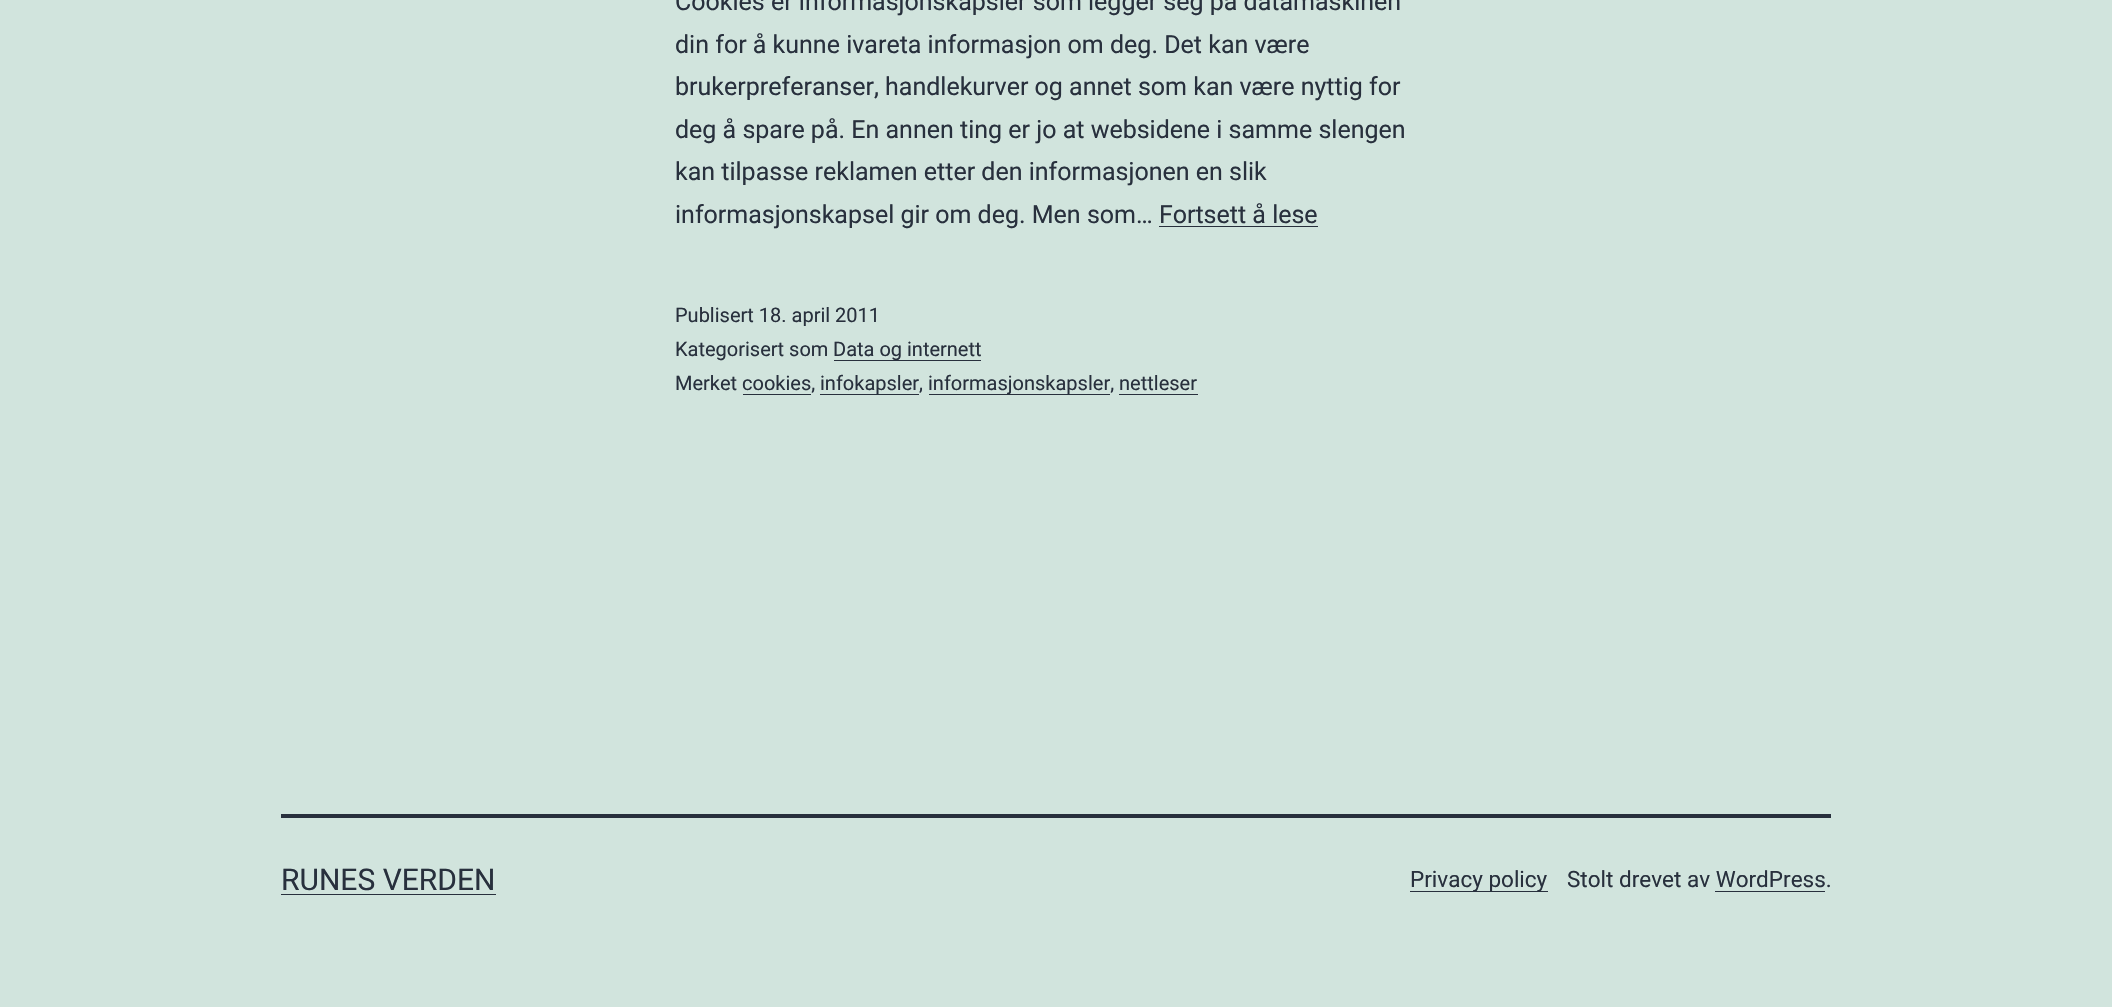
void draw(SkCanvas* canvas) {
	SkPaint fill;
	fill.setAntiAlias(true);
	auto makeFont = [&](const char* family, int weight, float size, bool italic = false) {
		SkFontStyle style(weight, SkFontStyle::kNormal_Width,
			italic ? SkFontStyle::kItalic_Slant : SkFontStyle::kUpright_Slant);
		SkFont result(fontMgr->matchFamilyStyle(family, style), size);
		result.setSubpixel(true);
		return result;
	};
	auto text = [&](const char* s, float x, float y, const SkFont& font) {
		canvas->drawString(s, x, y, font, fill);
	};
	auto box = [&](float l, float t, float r, float b) {
		canvas->drawRect(SkRect::MakeLTRB(l, t, r, b), fill);
	};
	canvas->clear(0xFFD1E4DD);
	fill.setColor(0xFF28303D);
	box(1159, 226, 1318, 227);
	box(834, 360, 981, 361);
	box(820, 394, 919, 395);
	box(929, 394, 1110, 395);
	box(743, 394, 811, 395);
	box(1119, 394, 1198, 395);
	box(281, 814, 1831, 818);
	box(281, 894, 496, 895);
	box(1410, 891, 1548, 892);
	box(1715, 891, 1825, 892);
	auto font1 = makeFont("Roboto", 400, 25);
	text("Cookies er informasjonskapsler som legger seg på datamaskinen", 675, 10, font1);
	text("din for å kunne ivareta informasjon om deg. Det kan være", 675, 53, font1);
	text("brukerpreferanser, handlekurver og annet som kan være nyttig for", 675, 95, font1);
	text("deg å spare på. En annen ting er jo at websidene i samme slengen", 675, 138, font1);
	text("kan tilpasse reklamen etter den informasjonen en slik", 675, 180, font1);
	text("informasjonskapsel gir om deg. Men som… Fortsett å lese", 675, 223, font1);
	auto font2 = makeFont("Roboto", 400, 20);
	text("Publisert 18. april 2011", 675, 322, font2);
	text("Kategorisert som", 675, 356, font2);
	text("Data og internett", 833, 356, font2);
	text("Merket cookies,", 675, 390, font2);
	text("infokapsler,", 820, 390, font2);
	text("informasjonskapsler, nettleser", 928, 390, font2);
	auto font3 = makeFont("Roboto", 400, 30);
	text("RUNES VERDEN", 281, 890, font3);
	auto font4 = makeFont("Roboto", 400, 22.5f);
	text("Privacy policy", 1410, 887, font4);
	text("Stolt drevet av WordPress.", 1567, 887, font4);
}
